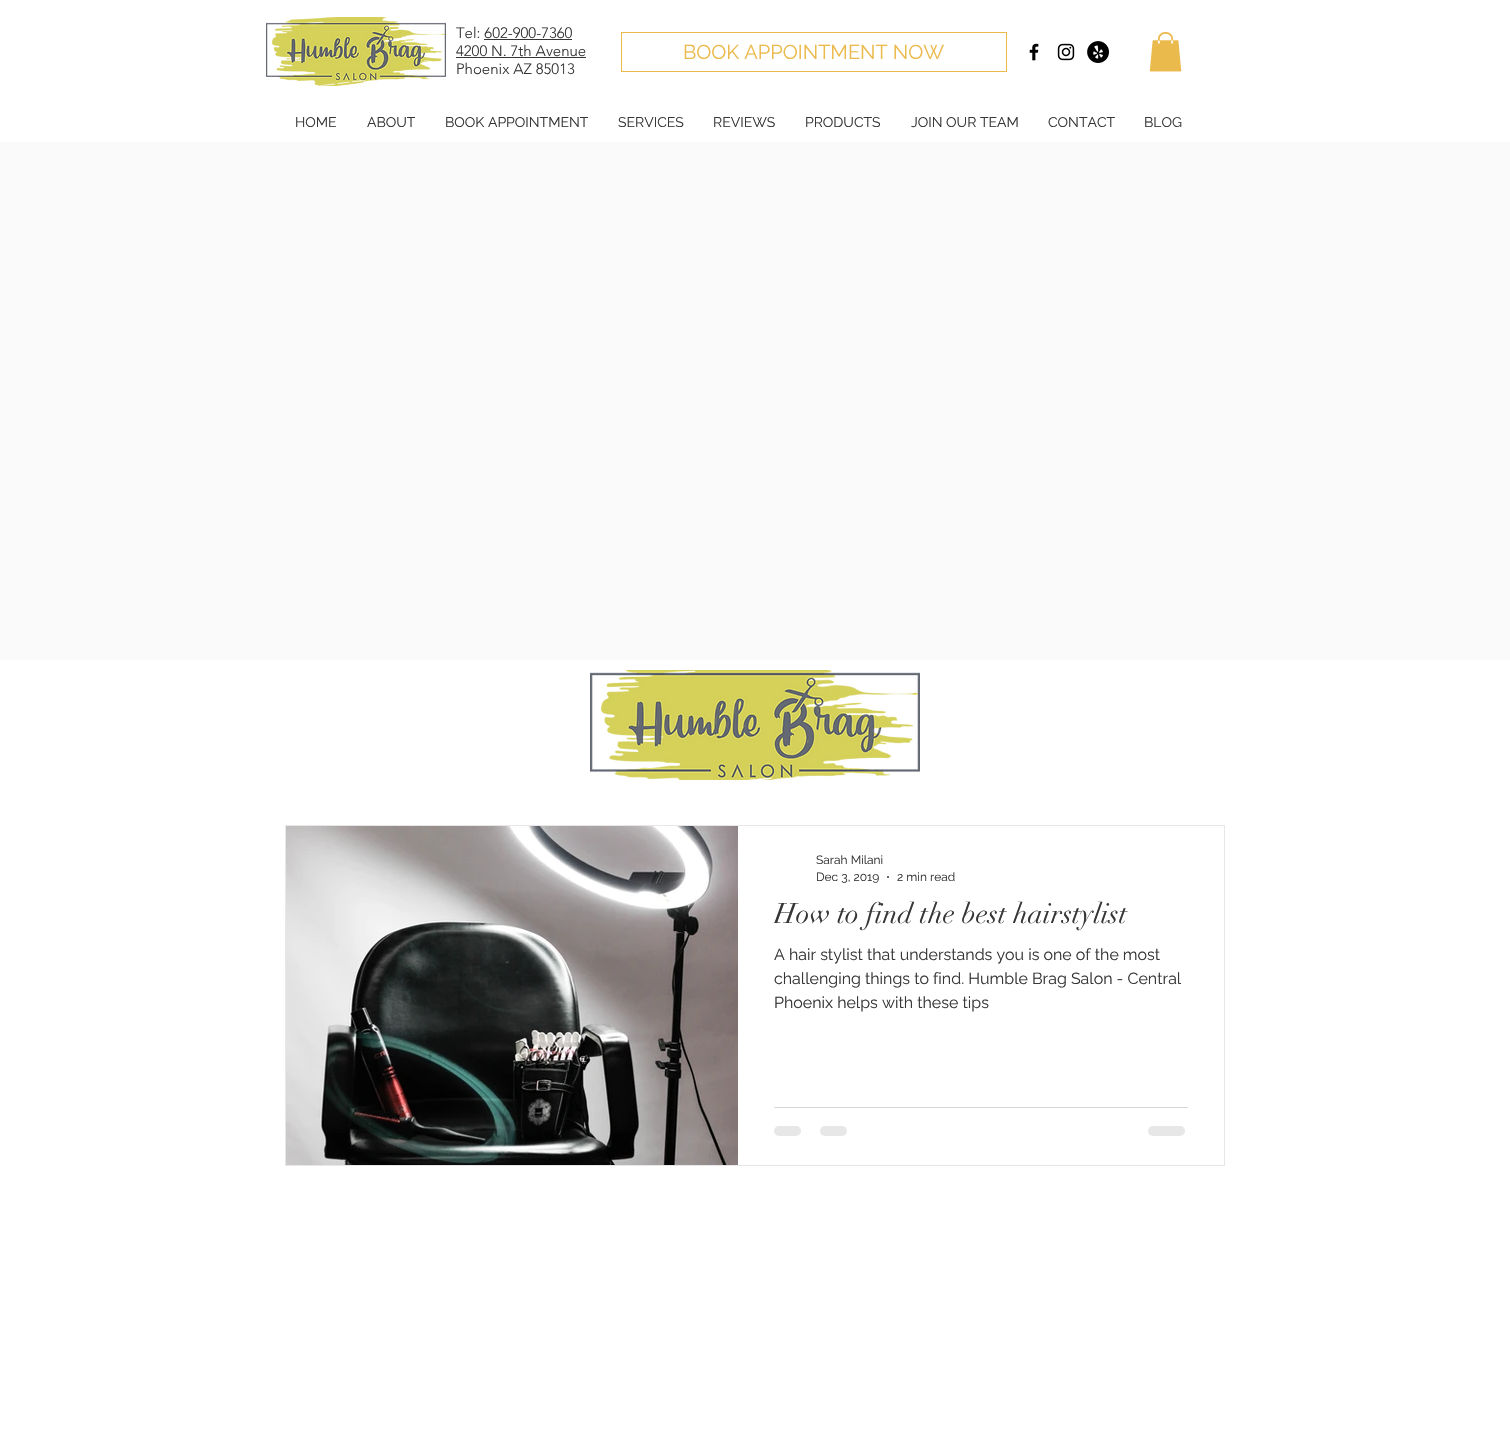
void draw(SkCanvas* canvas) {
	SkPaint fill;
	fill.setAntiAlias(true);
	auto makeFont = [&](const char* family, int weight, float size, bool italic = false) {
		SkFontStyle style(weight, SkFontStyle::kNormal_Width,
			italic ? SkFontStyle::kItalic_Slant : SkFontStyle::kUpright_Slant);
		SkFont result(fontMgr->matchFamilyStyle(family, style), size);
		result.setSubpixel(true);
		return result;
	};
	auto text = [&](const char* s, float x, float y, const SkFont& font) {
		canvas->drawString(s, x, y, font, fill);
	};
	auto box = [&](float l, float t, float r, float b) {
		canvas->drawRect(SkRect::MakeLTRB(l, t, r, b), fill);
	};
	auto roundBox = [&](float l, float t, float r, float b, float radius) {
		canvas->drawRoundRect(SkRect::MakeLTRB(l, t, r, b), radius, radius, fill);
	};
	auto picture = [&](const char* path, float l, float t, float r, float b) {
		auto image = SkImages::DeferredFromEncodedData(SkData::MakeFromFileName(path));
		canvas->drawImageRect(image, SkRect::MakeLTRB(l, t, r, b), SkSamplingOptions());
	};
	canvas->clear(0xFFFFFFFF);
	picture("image0.png", 266, 17, 446, 86);
	fill.setColor(0xFF363636);
	box(484, 39, 572, 40);
	box(456, 57, 586, 58);
	fill.setStyle(SkPaint::kStroke_Style);
	fill.setStrokeWidth(1);
	fill.setColor(0xFFEBBA4D);
	canvas->drawRect(SkRect::MakeLTRB(621.5f, 32.5f, 1006.5f, 71.5f), fill);
	picture("image1.png", 1029, 43, 1039, 61);
	picture("image2.png", 1057, 43, 1075, 61);
	picture("image3.png", 1087, 41, 1109, 63);
	picture("image4.png", 1149, 32, 1182, 72);
	fill.setStyle(SkPaint::kFill_Style);
	fill.setColor(0xFFFAFAFA);
	box(0, 142, 1510, 660);
	picture("image5.png", 590, 670, 920, 780);
	fill.setStyle(SkPaint::kStroke_Style);
	fill.setColor(0xFFE8E6E6);
	canvas->drawRect(SkRect::MakeLTRB(285.5f, 825.5f, 1224.5f, 1165.5f), fill);
	picture("image6.png", 286, 826, 738, 1165);
	fill.setStyle(SkPaint::kFill_Style);
	fill.setColor(0xFF363636);
	canvas->drawCircle(888, 877, 1, fill);
	fill.setColor(0xFFD7D7D7);
	box(774, 1107, 1188, 1108);
	fill.setColor(0xFFE7E7E7);
	roundBox(774, 1126, 801, 1136, 5);
	roundBox(820, 1126, 847, 1136, 5);
	roundBox(1148, 1126, 1185, 1136, 5);
	auto font1 = makeFont("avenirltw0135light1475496", 300, 15);
	fill.setColor(0xFF363636);
	text("Tel: 602-900-7360", 456, 38, font1);
	text("4200 N. 7th Avenue", 456, 56, font1);
	text("Phoenix AZ 85013", 456, 74, font1);
	auto font2 = makeFont("Raleway", 400, 20);
	fill.setColor(0xFFEBBA4D);
	text("BOOK APPOINTMENT NOW", 683, 59, font2);
	auto font3 = makeFont("Raleway", 400, 14);
	fill.setColor(0xFF363636);
	text("HOME", 295, 127, font3);
	text("ABOUT", 367, 127, font3);
	text("BOOK APPOINTMENT", 445, 127, font3);
	text("SERVICES", 618, 127, font3);
	text("REVIEWS", 713, 127, font3);
	text("PRODUCTS", 805, 127, font3);
	text("JOIN OUR TEAM", 911, 127, font3);
	text("CONTACT", 1048, 127, font3);
	text("BLOG", 1144, 127, font3);
	auto font4 = makeFont("Raleway", 400, 12);
	text("Sarah Milani", 816, 864, font4);
	text("Dec 3, 2019", 816, 881, font4);
	text("2 min read", 897, 881, font4);
	canvas->save();
	canvas->clipRect(SkRect::MakeLTRB(774, 897, 1188, 931));
	auto font5 = makeFont("didot", 400, 28);
	text("How to find the best hairstylist", 774, 923, font5);
	canvas->restore();
	auto font6 = makeFont("Raleway", 400, 16);
	text("A hair stylist that understands you is one of the most", 774, 960, font6);
	text("challenging things to find. Humble Brag Salon - Central", 774, 984, font6);
	text("Phoenix helps with these tips", 774, 1008, font6);
}
